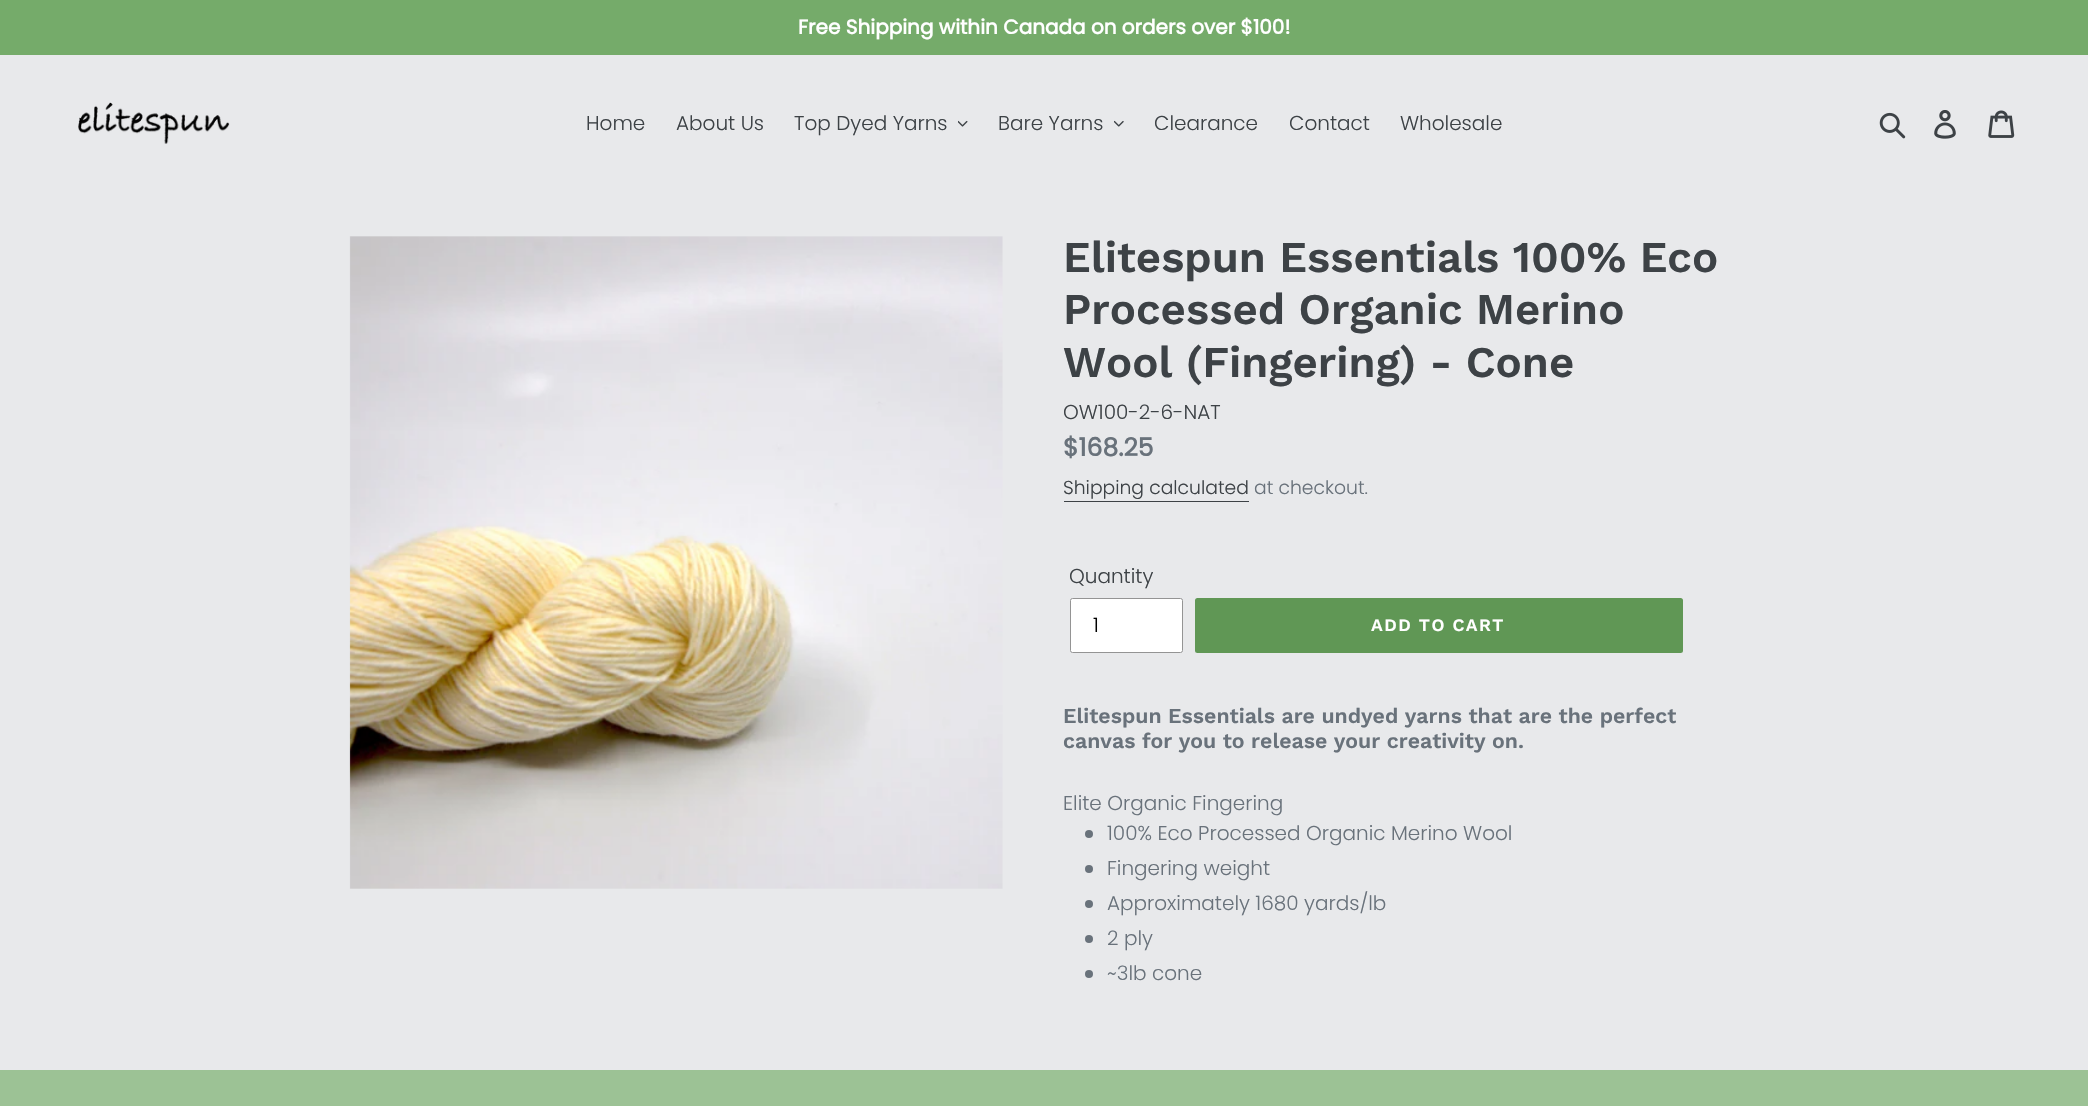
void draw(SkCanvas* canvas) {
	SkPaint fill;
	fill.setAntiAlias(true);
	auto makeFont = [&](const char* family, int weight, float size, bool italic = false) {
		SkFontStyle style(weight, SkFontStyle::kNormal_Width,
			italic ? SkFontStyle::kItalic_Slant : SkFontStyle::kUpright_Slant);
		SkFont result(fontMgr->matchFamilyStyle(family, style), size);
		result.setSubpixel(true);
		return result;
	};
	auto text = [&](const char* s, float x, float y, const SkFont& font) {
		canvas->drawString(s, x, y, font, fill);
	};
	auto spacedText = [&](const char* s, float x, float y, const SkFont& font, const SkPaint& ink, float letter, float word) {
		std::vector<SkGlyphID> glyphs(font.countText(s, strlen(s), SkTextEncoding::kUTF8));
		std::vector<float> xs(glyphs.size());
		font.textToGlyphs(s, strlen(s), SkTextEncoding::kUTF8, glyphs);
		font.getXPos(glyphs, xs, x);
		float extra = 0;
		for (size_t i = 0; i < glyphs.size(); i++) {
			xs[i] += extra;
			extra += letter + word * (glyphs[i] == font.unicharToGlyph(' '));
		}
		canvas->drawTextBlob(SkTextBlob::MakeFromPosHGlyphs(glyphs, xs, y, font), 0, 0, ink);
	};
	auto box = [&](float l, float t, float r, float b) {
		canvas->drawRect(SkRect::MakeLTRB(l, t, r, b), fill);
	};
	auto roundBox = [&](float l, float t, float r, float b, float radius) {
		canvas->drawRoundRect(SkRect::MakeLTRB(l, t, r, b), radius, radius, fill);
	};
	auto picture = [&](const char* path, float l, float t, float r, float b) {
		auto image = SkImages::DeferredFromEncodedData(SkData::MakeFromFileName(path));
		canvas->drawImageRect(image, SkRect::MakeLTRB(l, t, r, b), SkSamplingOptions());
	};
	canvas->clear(0xFFE8E9EB);
	fill.setColor(0xFF75AB6A);
	box(0, 0, 2088, 55);
	picture("image0.png", 78, 102, 230, 144);
	picture("image1.png", 958, 120, 968, 127);
	picture("image2.png", 1114, 120, 1124, 127);
	picture("image3.png", 1879, 112, 1906, 139);
	picture("image4.png", 1934, 110, 1956, 139);
	picture("image5.png", 1988, 110, 2015, 138);
	picture("image6.png", 349, 236, 1003, 889);
	fill.setColor(0xFF3D4246);
	box(1064, 501, 1249, 502);
	fill.setColor(0xFFFFFFFF);
	canvas->drawRoundRect(SkRect::MakeLTRB(1070.5f, 598.5f, 1182.5f, 652.5f), 2, 2, fill);
	fill.setStyle(SkPaint::kStroke_Style);
	fill.setStrokeWidth(1);
	fill.setColor(0xFF949494);
	canvas->drawRoundRect(SkRect::MakeLTRB(1070.5f, 598.5f, 1182.5f, 652.5f), 2, 2, fill);
	fill.setStyle(SkPaint::kFill_Style);
	fill.setColor(0xFF609755);
	roundBox(1195, 598, 1683, 653, 2.5f);
	fill.setColor(0xFF69727B);
	canvas->drawCircle(1089, 834, 4, fill);
	canvas->drawCircle(1089, 869, 4, fill);
	canvas->drawCircle(1089, 904, 4, fill);
	canvas->drawCircle(1089, 939, 4, fill);
	canvas->drawCircle(1089, 974, 4, fill);
	fill.setColor(0xFF9CC295);
	box(0, 1070, 2088, 1106);
	auto font1 = makeFont("Poppins", 700, 20);
	fill.setColor(0xFFFFFFFF);
	text("Free Shipping within Canada on orders over $100!", 798, 34, font1);
	auto font2 = makeFont("Poppins", 300, 20);
	fill.setColor(0xFF3D4246);
	text("Home", 586, 130, font2);
	text("About Us", 676, 130, font2);
	text("Top Dyed Yarns", 794, 130, font2);
	text("Bare Yarns", 998, 130, font2);
	text("Clearance", 1154, 130, font2);
	text("Contact", 1289, 130, font2);
	text("Wholesale", 1400, 130, font2);
	auto font3 = makeFont("Work Sans", 600, 43.75f);
	text("Elitespun Essentials 100% Eco", 1063, 272, font3);
	text("Processed Organic Merino", 1063, 324, font3);
	text("Wool (Fingering) - Cone", 1063, 377, font3);
	text("OW100-2-6-NAT", 1063, 419, font2);
	auto font4 = makeFont("Poppins", 700, 25);
	fill.setColor(0xFF69727B);
	text("$168.25", 1063, 456, font4);
	auto font5 = makeFont("Poppins", 300, 18.75f);
	fill.setColor(0xFF3D4246);
	text("Shipping calculated", 1063, 494, font5);
	fill.setColor(0xFF69727B);
	text("at checkout.", 1254, 494, font5);
	fill.setColor(0xFF3D4246);
	text("Quantity", 1069, 583, font2);
	fill.setColor(0xFF000000);
	text("1", 1093, 632, font2);
	auto font6 = makeFont("Work Sans", 600, 17.5f);
	fill.setColor(0xFFFFFFFF);
	spacedText("ADD TO CART", 1371, 631, font6, fill, 1.4f, 0);
	auto font7 = makeFont("Work Sans", 600, 21.25f);
	fill.setColor(0xFF69727B);
	text("Elitespun Essentials are undyed yarns that are the perfect", 1063, 723, font7);
	text("canvas for you to release your creativity on.", 1063, 748, font7);
	text("Elite Organic Fingering", 1063, 810, font2);
	text("100% Eco Processed Organic Merino Wool", 1107, 840, font2);
	text("Fingering weight", 1107, 875, font2);
	text("Approximately 1680 yards/lb", 1107, 910, font2);
	text("2 ply", 1107, 945, font2);
	text("~3lb cone", 1107, 980, font2);
}
